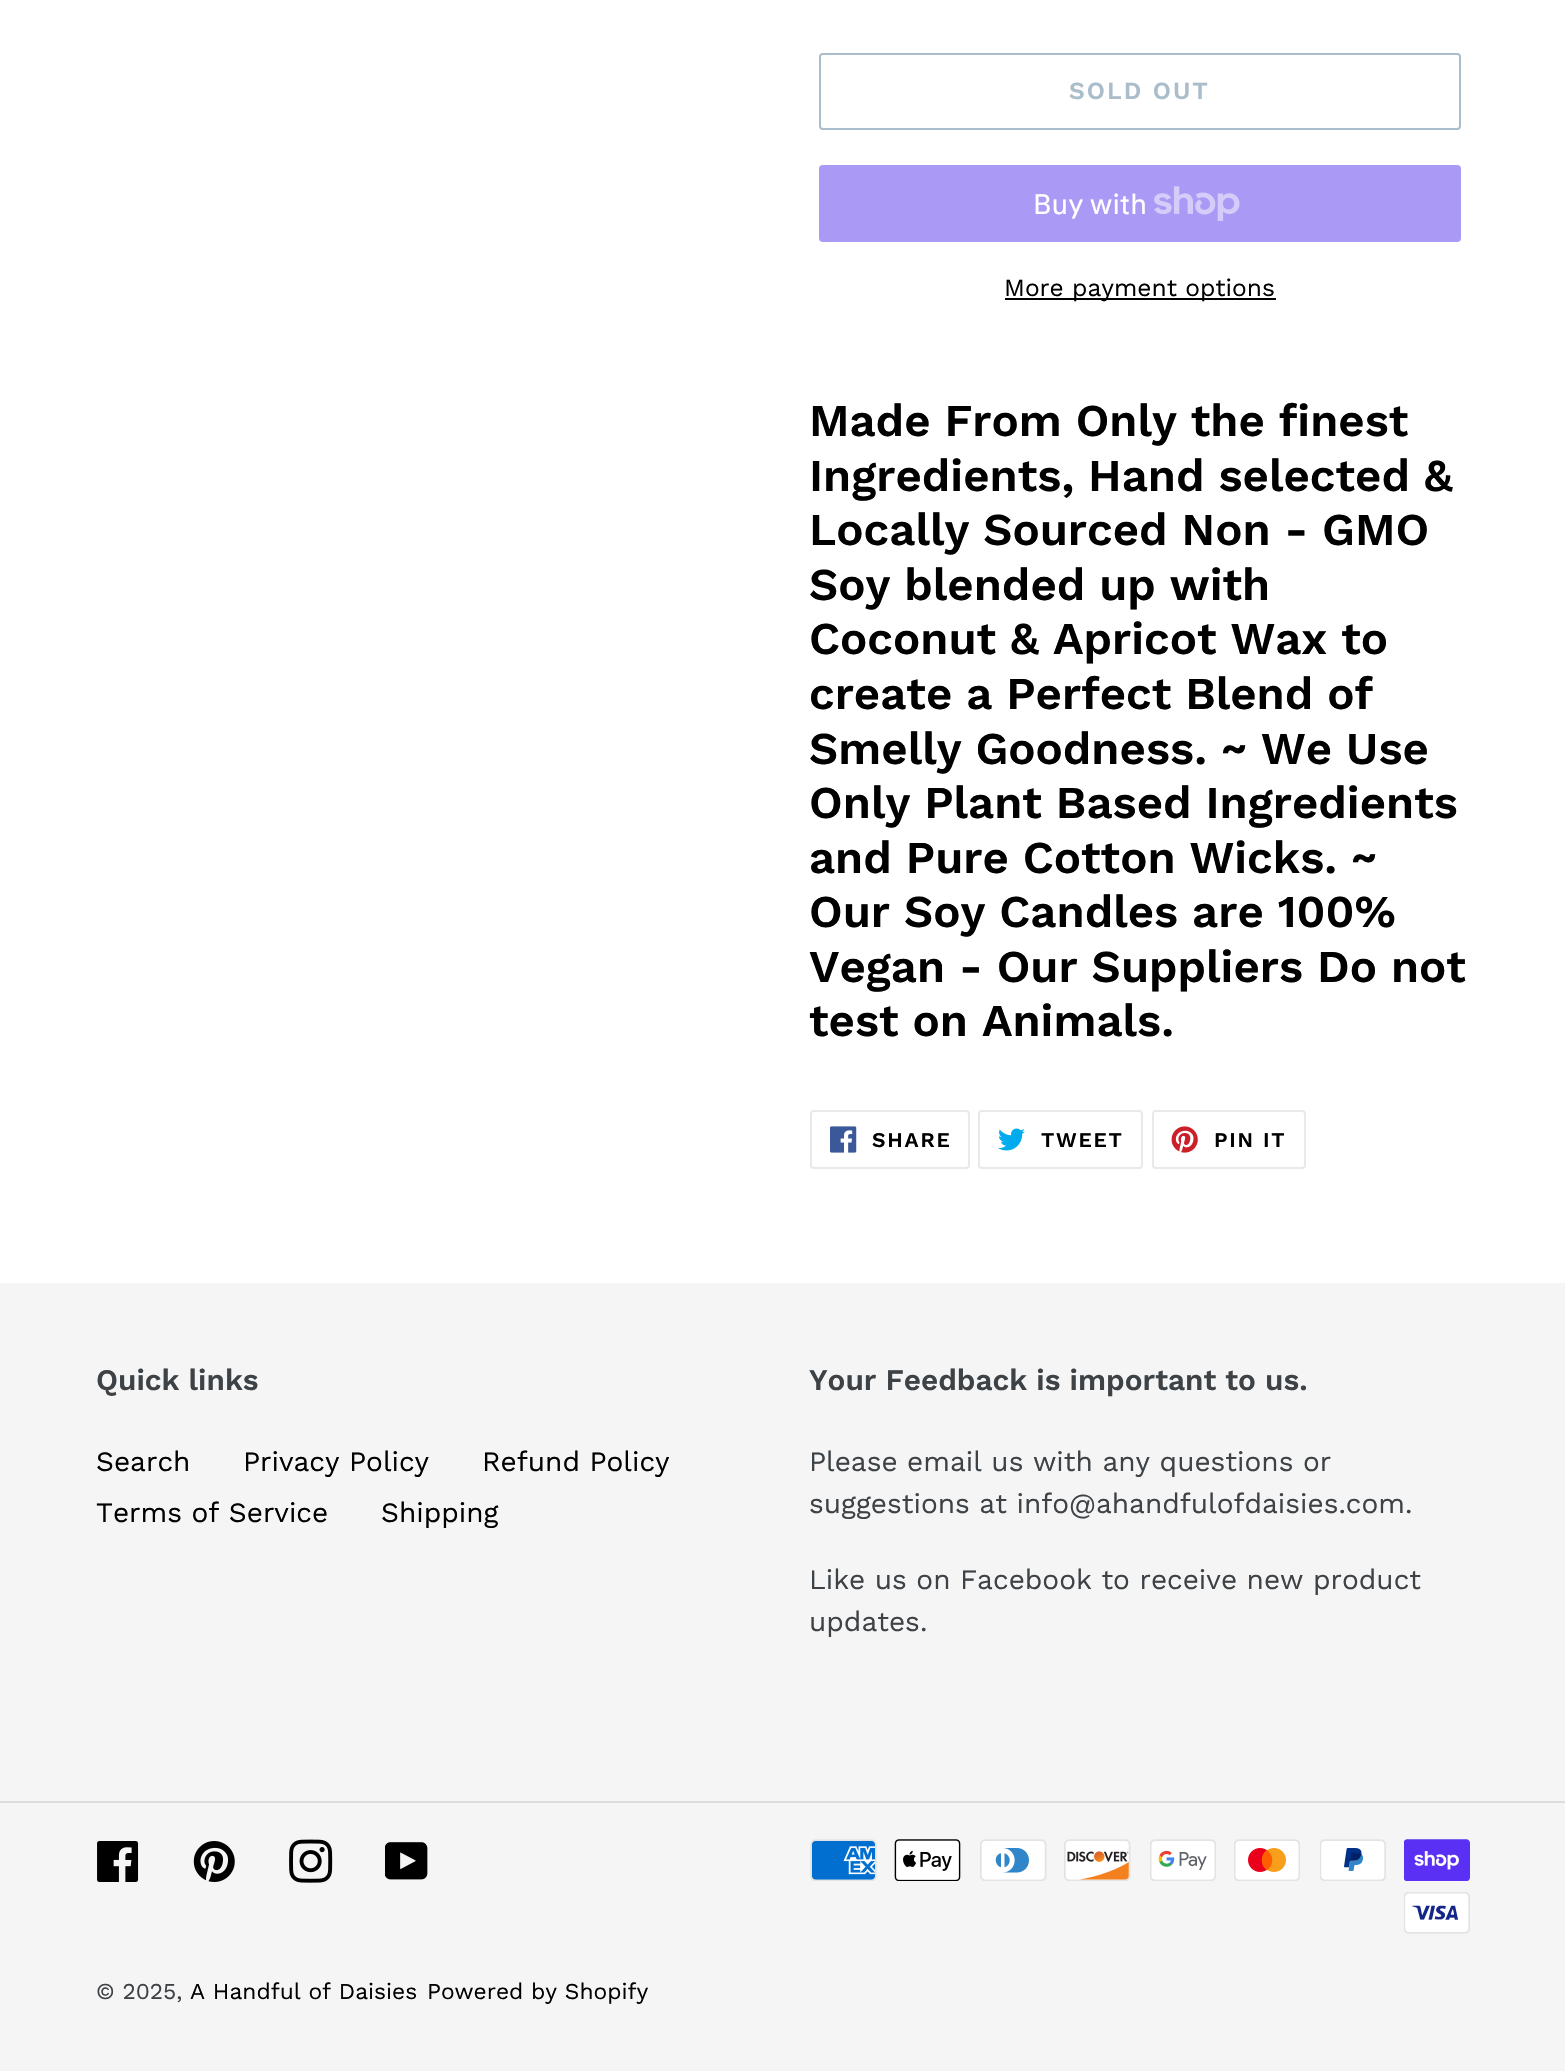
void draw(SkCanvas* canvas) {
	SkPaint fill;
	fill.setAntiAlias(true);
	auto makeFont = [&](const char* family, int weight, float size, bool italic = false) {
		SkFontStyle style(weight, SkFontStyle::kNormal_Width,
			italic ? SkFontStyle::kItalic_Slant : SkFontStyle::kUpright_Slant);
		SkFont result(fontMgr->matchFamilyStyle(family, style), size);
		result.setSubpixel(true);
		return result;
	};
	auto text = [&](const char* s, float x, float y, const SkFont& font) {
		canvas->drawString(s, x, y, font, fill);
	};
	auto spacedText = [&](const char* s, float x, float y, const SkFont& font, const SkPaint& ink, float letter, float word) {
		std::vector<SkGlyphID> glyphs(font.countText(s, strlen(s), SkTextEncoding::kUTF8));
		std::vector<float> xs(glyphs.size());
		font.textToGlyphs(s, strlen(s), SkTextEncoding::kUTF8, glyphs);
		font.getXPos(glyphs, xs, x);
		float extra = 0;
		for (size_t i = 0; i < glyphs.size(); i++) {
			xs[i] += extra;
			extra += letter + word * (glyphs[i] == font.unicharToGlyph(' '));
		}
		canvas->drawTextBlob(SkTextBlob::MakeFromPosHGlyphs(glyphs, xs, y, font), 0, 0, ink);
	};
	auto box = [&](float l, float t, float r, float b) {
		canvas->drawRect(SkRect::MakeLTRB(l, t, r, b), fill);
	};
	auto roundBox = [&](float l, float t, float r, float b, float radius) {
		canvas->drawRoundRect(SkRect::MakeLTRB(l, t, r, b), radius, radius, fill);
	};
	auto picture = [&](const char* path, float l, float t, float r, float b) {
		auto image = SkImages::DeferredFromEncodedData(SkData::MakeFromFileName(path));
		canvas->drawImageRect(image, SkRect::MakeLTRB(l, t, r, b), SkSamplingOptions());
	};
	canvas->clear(0xFFFFFFFF);
	fill.setStyle(SkPaint::kStroke_Style);
	fill.setStrokeWidth(2);
	fill.setColor(0xFFAABDCB);
	canvas->drawRoundRect(SkRect::MakeLTRB(820, 54, 1460, 129), 3, 3, fill);
	fill.setStyle(SkPaint::kFill_Style);
	fill.setColor(0xFFAA99F5);
	roundBox(819, 165, 1461, 242, 4);
	picture("image0.png", 1154, 186, 1240, 221);
	fill.setColor(0xFF000000);
	box(1005, 298, 1276, 300);
	fill.setStyle(SkPaint::kStroke_Style);
	fill.setColor(0xFFE8E9EB);
	canvas->drawRoundRect(SkRect::MakeLTRB(811, 1111, 969, 1168), 3, 3, fill);
	picture("image1.png", 830, 1126, 857, 1153);
	canvas->drawRoundRect(SkRect::MakeLTRB(979, 1111, 1142, 1168), 3, 3, fill);
	picture("image2.png", 998, 1128, 1025, 1151);
	canvas->drawRoundRect(SkRect::MakeLTRB(1153, 1111, 1305, 1168), 3, 3, fill);
	picture("image3.png", 1171, 1126, 1198, 1153);
	fill.setStyle(SkPaint::kFill_Style);
	fill.setColor(0xFFF5F5F5);
	box(0, 1283, 1565, 2071);
	fill.setColor(0xFFDCDCDC);
	box(0, 1801, 1565, 1803);
	picture("image4.png", 97, 1841, 139, 1882);
	picture("image5.png", 193, 1841, 235, 1882);
	picture("image6.png", 289, 1839, 333, 1883);
	picture("image7.png", 385, 1842, 428, 1880);
	picture("image8.png", 810, 1839, 877, 1881);
	picture("image9.png", 894, 1839, 961, 1881);
	picture("image10.png", 980, 1839, 1047, 1881);
	picture("image11.png", 1064, 1839, 1131, 1881);
	picture("image12.png", 1150, 1839, 1216, 1881);
	picture("image13.png", 1234, 1839, 1300, 1881);
	picture("image14.png", 1320, 1839, 1386, 1881);
	picture("image15.png", 1404, 1839, 1470, 1881);
	picture("image16.png", 1404, 1892, 1470, 1934);
	auto font1 = makeFont("Work Sans", 600, 24.5f);
	fill.setColor(0xFFAABDCB);
	spacedText("SOLD OUT", 1069, 99, font1, fill, 2, 0);
	auto font2 = makeFont("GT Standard", 400, 28);
	fill.setColor(0xFFFFFFFF);
	text("Buy with", 1033, 214, font2);
	auto font3 = makeFont("Work Sans", 400, 24.5f);
	fill.setColor(0xFF000000);
	text("More payment options", 1004, 296, font3);
	auto font4 = makeFont("Work Sans", 600, 45.5f);
	text("Made From Only the finest", 809, 436, font4);
	text("Ingredients, Hand selected &", 809, 491, font4);
	text("Locally Sourced Non - GMO", 809, 545, font4);
	text("Soy blended up with", 809, 600, font4);
	text("Coconut & Apricot Wax to", 809, 654, font4);
	text("create a Perfect Blend of", 809, 709, font4);
	text("Smelly Goodness. ~ We Use", 809, 764, font4);
	text("Only Plant Based Ingredients", 809, 818, font4);
	text("and Pure Cotton Wicks. ~", 809, 873, font4);
	text("Our Soy Candles are 100%", 809, 927, font4);
	text("Vegan - Our Suppliers Do not", 809, 982, font4);
	text("test on Animals.", 809, 1036, font4);
	auto font5 = makeFont("Work Sans", 600, 21);
	spacedText("SHARE", 872, 1147, font5, fill, 1.75f, 0);
	spacedText("TWEET", 1041, 1147, font5, fill, 1.75f, 0);
	spacedText("PIN IT", 1214, 1147, font5, fill, 1.75f, 0);
	auto font6 = makeFont("Work Sans", 600, 29.75f);
	fill.setColor(0xFF3D4246);
	text("Quick links", 96, 1390, font6);
	auto font7 = makeFont("Work Sans", 400, 28);
	fill.setColor(0xFF000000);
	text("Search", 96, 1471, font7);
	text("Privacy Policy", 243, 1471, font7);
	text("Refund Policy", 482, 1471, font7);
	text("Terms of Service", 96, 1522, font7);
	text("Shipping", 381, 1522, font7);
	fill.setColor(0xFF3D4246);
	text("Your Feedback is important to us.", 809, 1390, font6);
	text("Please email us with any questions or", 809, 1471, font7);
	text("suggestions at info@ahandfulofdaisies.com.", 809, 1513, font7);
	text("Like us on Facebook to receive new product", 809, 1589, font7);
	text("updates.", 809, 1631, font7);
	auto font8 = makeFont("Work Sans", 400, 22.75f);
	text("© 2025,", 96, 1999, font8);
	fill.setColor(0xFF000000);
	text("A Handful of Daisies", 190, 1999, font8);
	text("Powered by Shopify", 427, 1999, font8);
}
